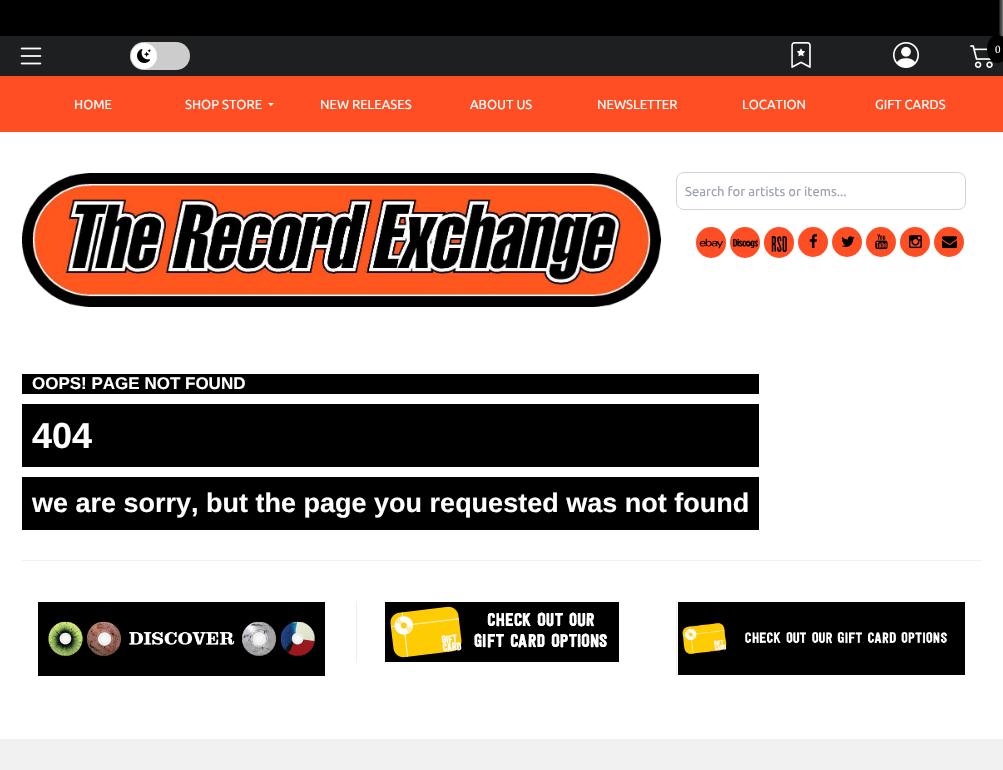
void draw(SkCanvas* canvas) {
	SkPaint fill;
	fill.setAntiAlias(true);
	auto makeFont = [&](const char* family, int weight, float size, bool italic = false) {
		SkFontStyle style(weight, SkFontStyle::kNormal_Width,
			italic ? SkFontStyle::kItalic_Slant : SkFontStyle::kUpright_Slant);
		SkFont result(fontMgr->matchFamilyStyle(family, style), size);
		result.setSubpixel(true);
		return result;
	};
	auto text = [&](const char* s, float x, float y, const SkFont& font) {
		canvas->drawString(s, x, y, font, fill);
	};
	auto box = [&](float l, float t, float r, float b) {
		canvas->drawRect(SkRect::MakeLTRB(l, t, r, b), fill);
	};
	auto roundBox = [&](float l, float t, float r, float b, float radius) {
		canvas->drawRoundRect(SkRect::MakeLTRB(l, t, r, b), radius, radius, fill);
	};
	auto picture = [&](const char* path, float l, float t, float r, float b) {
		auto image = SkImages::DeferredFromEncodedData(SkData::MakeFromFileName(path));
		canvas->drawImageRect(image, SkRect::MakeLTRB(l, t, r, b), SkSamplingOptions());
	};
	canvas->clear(0xFFFFFFFF);
	picture("image0.png", 0, 0, 1003, 36);
	fill.setColor(0xFF1D1F20);
	box(0, 36, 1003, 76);
	picture("image1.png", 20, 47, 42, 65);
	fill.setColor(0xFFCCCCCC);
	roundBox(130, 42, 190, 70, 14);
	fill.setColor(0xFFFFFFFF);
	canvas->drawCircle(144, 56, 13, fill);
	picture("image2.png", 137, 49, 151, 63);
	picture("image3.png", 791, 42, 811, 68);
	picture("image4.png", 893, 42, 919, 68);
	picture("image5.png", 970, 45, 993, 68);
	fill.setColor(0xFF000000);
	canvas->drawOval(SkRect::MakeLTRB(987, 35, 1008, 63), fill);
	fill.setColor(0xFFFF4E24);
	box(0, 76, 1003, 132);
	fill.setColor(0xFFFFFFFF);
	canvas->drawPath(SkPathBuilder().moveTo(268, 103).lineTo(274, 103).lineTo(271, 106).close().detach(), fill);
	picture("image6.png", 22, 173, 661, 307);
	fill.setStyle(SkPaint::kStroke_Style);
	fill.setStrokeWidth(1);
	fill.setColor(0xFFD1D5DB);
	canvas->drawRoundRect(SkRect::MakeLTRB(676.5f, 172.5f, 965.5f, 209.5f), 7.5f, 7.5f, fill);
	fill.setStyle(SkPaint::kFill_Style);
	fill.setColor(0xFFFF4E24);
	roundBox(696, 227, 726, 258, 15);
	picture("image7.png", 699, 238, 724, 249);
	roundBox(730, 227, 760, 258, 15);
	picture("image8.png", 733, 239, 758, 248);
	roundBox(764, 227, 794, 258, 15);
	picture("image9.png", 771, 236, 787, 252);
	canvas->drawCircle(813, 242, 15, fill);
	picture("image10.png", 809, 234, 818, 249);
	canvas->drawCircle(847, 242, 15, fill);
	picture("image11.png", 841, 236, 855, 247);
	canvas->drawCircle(881, 242, 15, fill);
	picture("image12.png", 875, 234, 888, 250);
	canvas->drawCircle(915, 242, 15, fill);
	picture("image13.png", 909, 235, 922, 249);
	canvas->drawCircle(949, 242, 15, fill);
	picture("image14.png", 942, 236, 957, 249);
	fill.setColor(0xFF000000);
	box(22, 374, 759, 394);
	box(22, 404, 759, 467);
	box(22, 477, 759, 530);
	fill.setColor(0xFFF1F1F1);
	box(22, 560, 982, 561);
	picture("image15.png", 38, 602, 325, 676);
	fill.setColor(0xFFEEEEEE);
	box(356, 601, 357, 663);
	picture("image16.png", 385, 602, 619, 662);
	box(676, 601, 677, 676);
	picture("image17.png", 678, 602, 965, 675);
	fill.setColor(0xFFF1F1F1);
	box(0, 739, 1003, 770);
	auto font1 = makeFont("Liberation Serif", 400, 11);
	fill.setColor(0xFFFFFFFF);
	text("0", 995, 53, font1);
	auto font2 = makeFont("Ubuntu", 400, 13);
	text("HOME", 74, 109, font2);
	text("SHOP STORE", 185, 109, font2);
	text("NEW RELEASES", 320, 109, font2);
	text("ABOUT US", 470, 109, font2);
	text("NEWSLETTER", 597, 109, font2);
	text("LOCATION", 742, 109, font2);
	text("GIFT CARDS", 875, 109, font2);
	fill.setColor(0xFF9CA3AF);
	text("Search for artists or items...", 685, 196, font2);
	auto font3 = makeFont("Liberation Sans", 700, 17);
	fill.setColor(0xFFFFFFFF);
	text("OOPS! PAGE NOT FOUND", 32, 389, font3);
	auto font4 = makeFont("Liberation Sans", 700, 36);
	text("404", 32, 448, font4);
	auto font5 = makeFont("Liberation Sans", 700, 27);
	text("we are sorry, but the page you requested was not found", 32, 512, font5);
}
